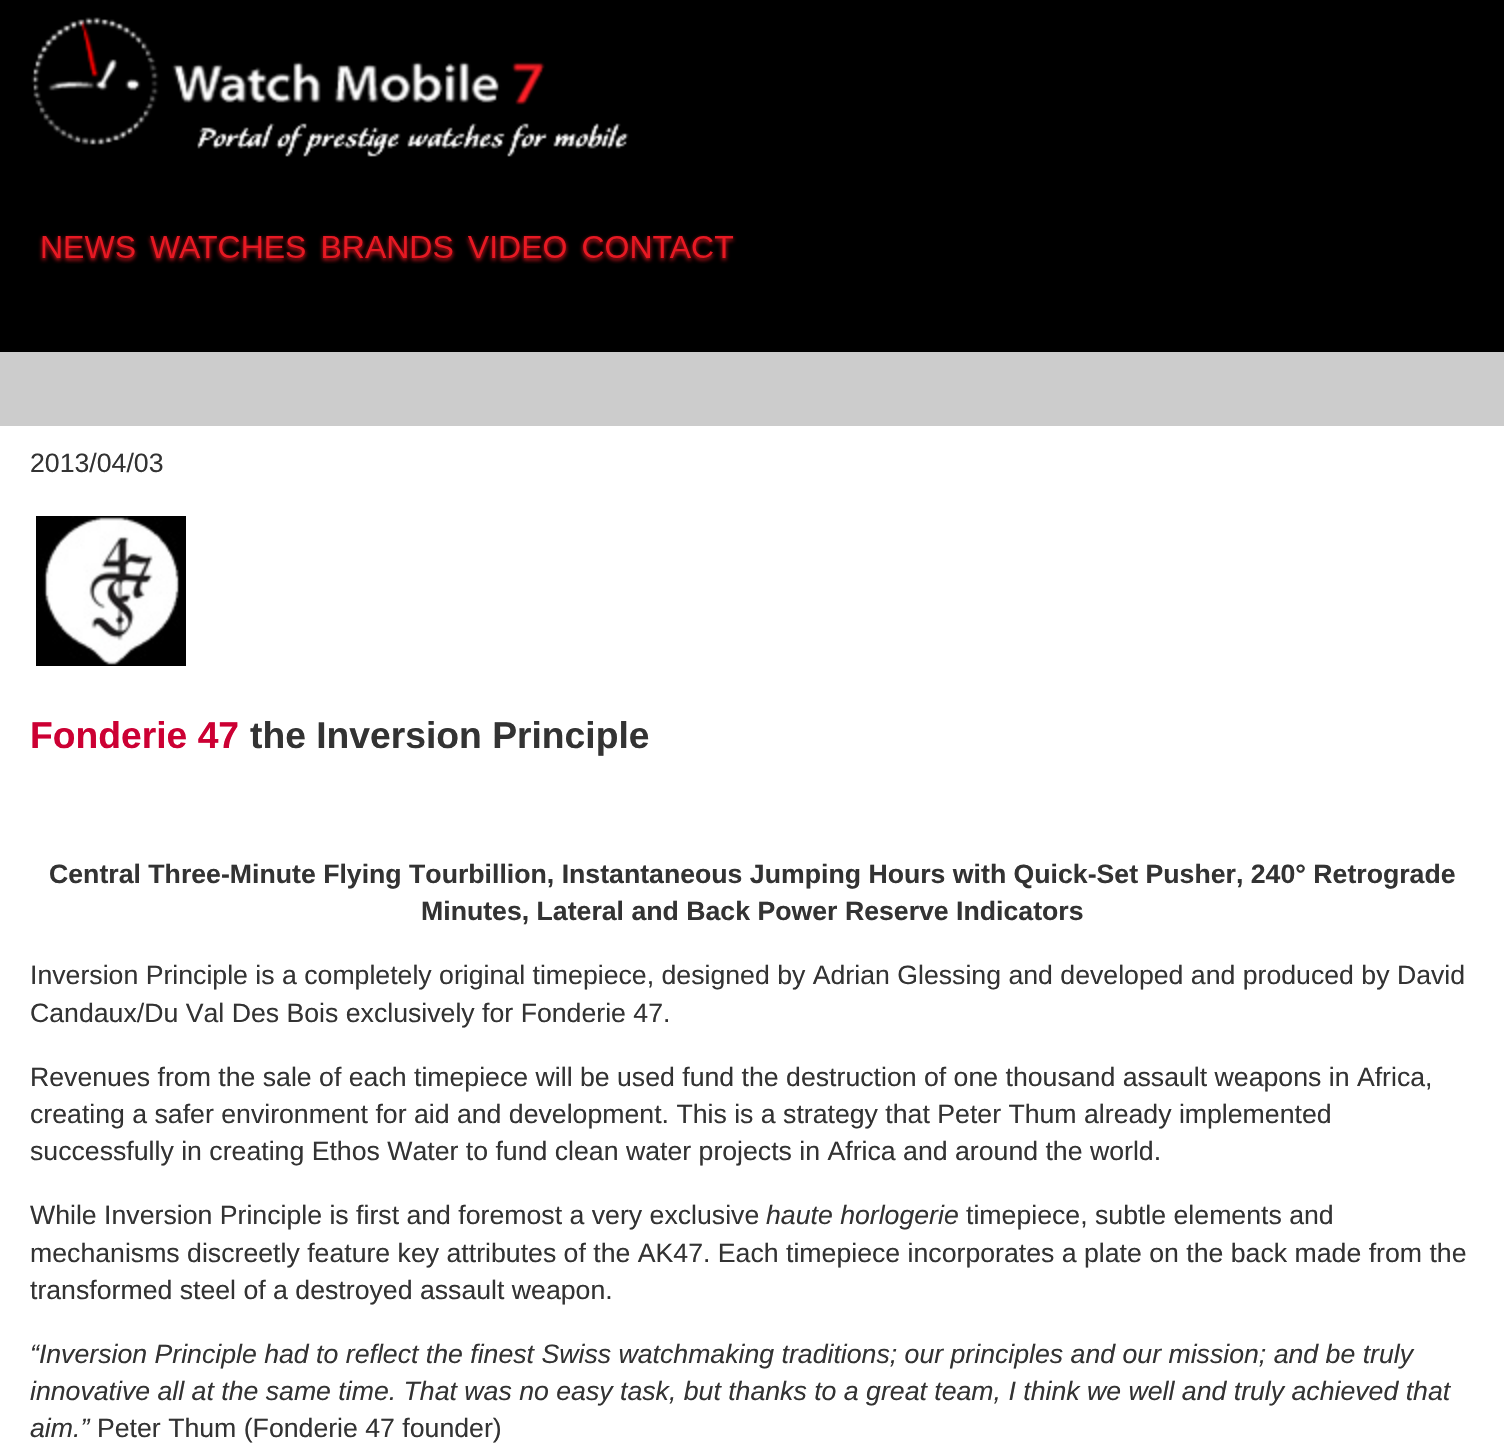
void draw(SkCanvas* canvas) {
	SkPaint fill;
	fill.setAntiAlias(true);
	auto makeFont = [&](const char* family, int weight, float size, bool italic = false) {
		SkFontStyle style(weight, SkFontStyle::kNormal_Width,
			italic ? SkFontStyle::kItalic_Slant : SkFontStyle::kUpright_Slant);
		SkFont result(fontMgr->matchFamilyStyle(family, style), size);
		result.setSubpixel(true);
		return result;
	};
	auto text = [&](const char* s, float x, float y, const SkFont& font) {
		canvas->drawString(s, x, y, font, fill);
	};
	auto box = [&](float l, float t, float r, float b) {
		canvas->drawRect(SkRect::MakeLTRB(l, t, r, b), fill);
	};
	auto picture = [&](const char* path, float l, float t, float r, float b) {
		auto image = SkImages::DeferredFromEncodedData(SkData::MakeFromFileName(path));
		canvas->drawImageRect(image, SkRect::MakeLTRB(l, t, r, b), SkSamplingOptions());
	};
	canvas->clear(0xFF000000);
	picture("image0.png", 31, 17, 737, 264);
	fill.setColor(0xFFFFFFFF);
	box(0, 426, 1504, 1454);
	fill.setColor(0xFFCCCCCC);
	box(0, 352, 1504, 426);
	picture("image1.png", 36, 516, 186, 666);
	auto font1 = makeFont("Liberation Sans", 400, 26.67f);
	fill.setColor(0xFF333333);
	text("2013/04/03", 30, 472, font1);
	auto font2 = makeFont("Liberation Sans", 700, 37.25f);
	fill.setColor(0xFFCC0033);
	text("Fonderie 47", 30, 748, font2);
	fill.setColor(0xFF333333);
	text("the Inversion Principle", 250, 748, font2);
	auto font3 = makeFont("Liberation Sans", 700, 26.67f);
	text("Central Three-Minute Flying Tourbillion, Instantaneous Jumping Hours with Quick-Set Pusher, 240° Retrograde", 49, 883, font3);
	text("Minutes, Lateral and Back Power Reserve Indicators", 421, 920, font3);
	text("Inversion Principle is a completely original timepiece, designed by Adrian Glessing and developed and produced by David", 30, 984, font1);
	text("Candaux/Du Val Des Bois exclusively for Fonderie 47.", 30, 1022, font1);
	text("Revenues from the sale of each timepiece will be used fund the destruction of one thousand assault weapons in Africa,", 30, 1086, font1);
	text("creating a safer environment for aid and development. This is a strategy that Peter Thum already implemented", 30, 1123, font1);
	text("successfully in creating Ethos Water to fund clean water projects in Africa and around the world.", 30, 1160, font1);
	text("While Inversion Principle is first and foremost a very exclusive", 30, 1224, font1);
	auto font4 = makeFont("Liberation Sans", 400, 26.67f, true);
	text("haute horlogerie", 766, 1224, font4);
	text("timepiece, subtle elements and", 966, 1224, font1);
	text("mechanisms discreetly feature key attributes of the AK47. Each timepiece incorporates a plate on the back made from the", 30, 1262, font1);
	text("transformed steel of a destroyed assault weapon.", 30, 1299, font1);
	text("“Inversion Principle had to reflect the finest Swiss watchmaking traditions; our principles and our mission; and be truly", 30, 1363, font4);
	text("innovative all at the same time. That was no easy task, but thanks to a great team, I think we well and truly achieved that", 30, 1400, font4);
	text("aim.”", 30, 1437, font4);
	text("Peter Thum (Fonderie 47 founder)", 97, 1437, font1);
}
